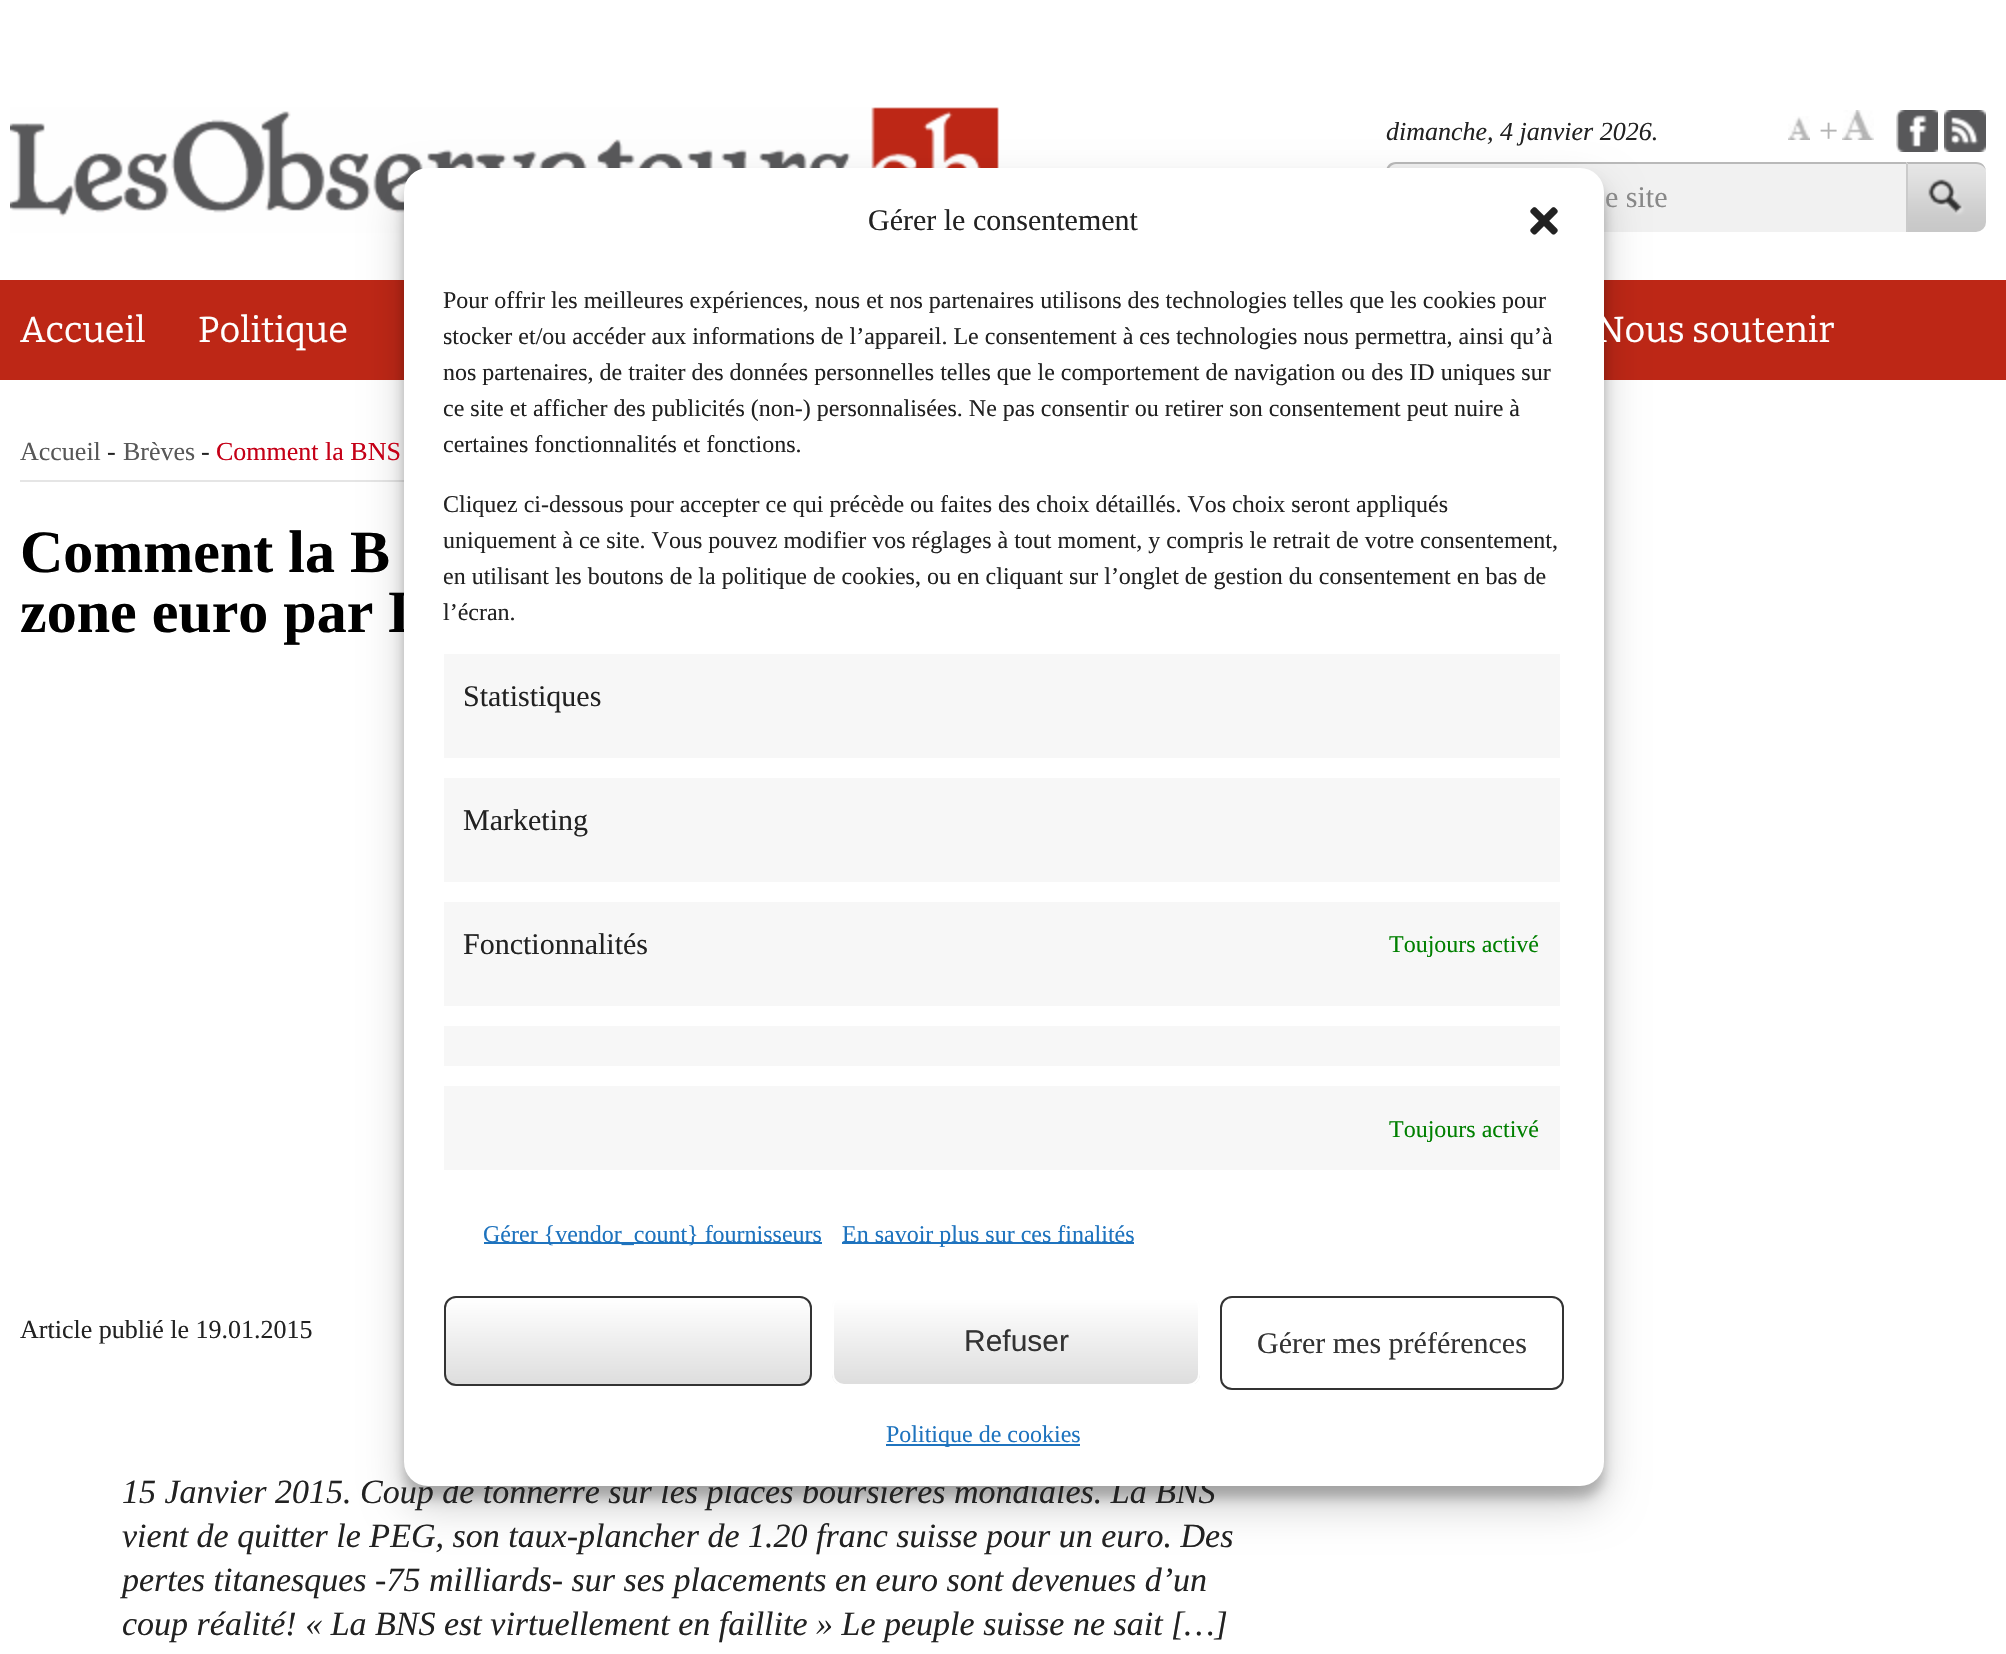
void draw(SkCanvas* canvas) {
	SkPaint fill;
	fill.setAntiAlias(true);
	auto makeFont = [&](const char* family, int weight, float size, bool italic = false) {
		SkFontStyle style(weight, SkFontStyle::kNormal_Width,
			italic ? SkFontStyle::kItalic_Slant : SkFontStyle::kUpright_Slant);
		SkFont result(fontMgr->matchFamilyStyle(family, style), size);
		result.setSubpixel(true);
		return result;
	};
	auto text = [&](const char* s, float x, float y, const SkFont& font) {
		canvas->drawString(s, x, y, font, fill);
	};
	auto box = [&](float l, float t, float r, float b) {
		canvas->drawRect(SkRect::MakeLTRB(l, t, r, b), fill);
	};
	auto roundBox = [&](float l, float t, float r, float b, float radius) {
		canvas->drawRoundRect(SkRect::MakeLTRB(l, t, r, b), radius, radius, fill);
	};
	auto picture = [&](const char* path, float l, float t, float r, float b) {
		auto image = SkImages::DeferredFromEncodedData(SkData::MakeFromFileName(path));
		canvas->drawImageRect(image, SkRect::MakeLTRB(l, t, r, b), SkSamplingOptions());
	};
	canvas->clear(0xFFFFFFFF);
	picture("image0.png", 10, 107, 999, 233);
	picture("image1.png", 1788, 116, 1810, 140);
	picture("image2.png", 1842, 110, 1874, 140);
	picture("image3.png", 1896, 110, 1938, 152);
	picture("image4.png", 1944, 110, 1986, 152);
	fill.setColor(0xFFF1F1F1);
	canvas->drawPath(SkPathBuilder().moveTo(1396, 164).lineTo(1906, 164).lineTo(1906, 232).lineTo(1396, 232).cubicTo(1392, 232, 1388, 228, 1388, 222).lineTo(1388, 172).cubicTo(1388, 168, 1392, 164, 1396, 164).close().detach(), fill);
	fill.setColor(0xFFB9B9B9);
	canvas->drawPath(SkPathBuilder(SkPathFillType::kEvenOdd).moveTo(1396, 162).lineTo(1906, 162).lineTo(1906, 232).lineTo(1396, 232).cubicTo(1390, 232, 1386, 228, 1386, 222).lineTo(1386, 172).cubicTo(1386, 166, 1390, 162, 1396, 162).close().moveTo(1396, 164).lineTo(1906, 164).lineTo(1906, 232).lineTo(1396, 232).cubicTo(1392, 232, 1388, 228, 1388, 222).lineTo(1388, 172).cubicTo(1388, 168, 1392, 164, 1396, 164).close().detach(), fill);
	picture("image5.png", 1908, 164, 1986, 232);
	canvas->drawPath(SkPathBuilder().moveTo(1906, 162).lineTo(1908, 164).lineTo(1976, 164).cubicTo(1982, 164, 1986, 168, 1986, 172).cubicTo(1986, 166, 1982, 162, 1976, 162).close().detach(), fill);
	fill.setColor(0xFFCACACA);
	canvas->drawPath(SkPathBuilder().moveTo(1906, 162).lineTo(1906, 232).lineTo(1908, 232).lineTo(1908, 164).close().detach(), fill);
	fill.setColor(0xFFBD2716);
	box(0, 280, 2006, 380);
	fill.setColor(0xFFE5E5E5);
	box(20, 480, 404, 482);
	fill.setColor(0x3B000000);
	fill.setMaskFilter(SkMaskFilter::MakeBlur(kNormal_SkBlurStyle, 6));
	canvas->drawRoundRect(SkRect::MakeLTRB(404, 180, 1604, 1498), 24, 24, fill);
	fill.setMaskFilter(nullptr);
	fill.setColor(0x30000000);
	fill.setMaskFilter(SkMaskFilter::MakeBlur(kNormal_SkBlurStyle, 20));
	canvas->drawRoundRect(SkRect::MakeLTRB(404, 188, 1604, 1506), 24, 24, fill);
	fill.setMaskFilter(nullptr);
	auto font1 = makeFont("Liberation Serif", 400, 26, true);
	fill.setColor(0xFF222222);
	text("dimanche, 4 janvier 2026.", 1386, 140, font1);
	auto font2 = makeFont("Liberation Serif", 400, 34);
	fill.setColor(0xFFB4B4B4);
	text("+", 1819, 142, font2);
	auto font3 = makeFont("Liberation Serif", 400, 30);
	fill.setColor(0xFF888888);
	text("e site", 1605, 207, font3);
	auto font4 = makeFont("Bitter", 100, 36);
	fill.setColor(0xFFFFFFFF);
	text("Accueil", 20, 342, font4);
	text("Politique", 198, 342, font4);
	text("Nous soutenir", 1596, 342, font4);
	auto font5 = makeFont("Liberation Serif", 400, 26);
	fill.setColor(0xFF585858);
	text("Accueil", 20, 460, font5);
	fill.setColor(0xFF222222);
	text("-", 107, 460, font5);
	fill.setColor(0xFF585858);
	text("Brèves", 123, 460, font5);
	fill.setColor(0xFF222222);
	text("-", 201, 460, font5);
	fill.setColor(0xFFC50017);
	text("Comment la BNS", 216, 460, font5);
	auto font6 = makeFont("Liberation Serif", 700, 60);
	fill.setColor(0xFF000000);
	text("Comment la B", 20, 572, font6);
	text("zone euro par L", 20, 632, font6);
	fill.setColor(0xFF222222);
	text("Article publié le 19.01.2015", 20, 1338, font5);
	auto font7 = makeFont("Liberation Serif", 400, 34, true);
	text("15 Janvier 2015. Coup de tonnerre sur les places boursières mondiales. La BNS", 122, 1503, font7);
	text("vient de quitter le PEG, son taux-plancher de 1.20 franc suisse pour un euro. Des", 122, 1547, font7);
	text("pertes titanesques -75 milliards- sur ses placements en euro sont devenues d’un", 122, 1591, font7);
	text("coup réalité! « La BNS est virtuellement en faillite » Le peuple suisse ne sait […]", 122, 1635, font7);
	fill.setColor(0xFFFFFFFF);
	roundBox(404, 168, 1604, 1486, 24);
	fill.setColor(0xFF222222);
	text("Gérer le consentement", 868, 230, font3);
	picture("image6.png", 1530, 207, 1558, 235);
	auto font8 = makeFont("Liberation Serif", 400, 24);
	text("Pour offrir les meilleures expériences, nous et nos partenaires utilisons des technologies telles que les cookies pour", 443, 308, font8);
	text("stocker et/ou accéder aux informations de l’appareil. Le consentement à ces technologies nous permettra, ainsi qu’à", 443, 344, font8);
	text("nos partenaires, de traiter des données personnelles telles que le comportement de navigation ou des ID uniques sur", 443, 380, font8);
	text("ce site et afficher des publicités (non-) personnalisées. Ne pas consentir ou retirer son consentement peut nuire à", 443, 416, font8);
	text("certaines fonctionnalités et fonctions.", 443, 452, font8);
	text("Cliquez ci-dessous pour accepter ce qui précède ou faites des choix détaillés. Vos choix seront appliqués", 443, 512, font8);
	text("uniquement à ce site. Vous pouvez modifier vos réglages à tout moment, y compris le retrait de votre consentement,", 443, 548, font8);
	text("en utilisant les boutons de la politique de cookies, ou en cliquant sur l’onglet de gestion du consentement en bas de", 443, 584, font8);
	text("l’écran.", 443, 620, font8);
	fill.setColor(0xFFF7F7F7);
	box(444, 654, 1560, 758);
	fill.setColor(0xFF222222);
	text("Statistiques", 463, 706, font3);
	fill.setColor(0xFFF7F7F7);
	box(444, 778, 1560, 882);
	fill.setColor(0xFF222222);
	text("Marketing", 463, 830, font3);
	fill.setColor(0xFFF7F7F7);
	box(444, 902, 1560, 1006);
	fill.setColor(0xFF222222);
	text("Fonctionnalités", 463, 954, font3);
	fill.setColor(0xFF008000);
	text("Toujours activé", 1389, 952, font8);
	fill.setColor(0xFFF7F7F7);
	box(444, 1026, 1560, 1066);
	box(444, 1086, 1560, 1170);
	fill.setColor(0xFF008000);
	text("Toujours activé", 1389, 1137, font8);
	fill.setColor(0xFF1E73BE);
	box(484, 1242, 822, 1244);
	text("Gérer {vendor_count} fournisseurs", 483, 1242, font8);
	box(842, 1242, 1134, 1244);
	text("En savoir plus sur ces finalités", 842, 1242, font8);
	canvas->save();
	canvas->clipPath(SkPathBuilder().moveTo(456, 1296).lineTo(800, 1296).cubicTo(806.5f, 1296, 812, 1301.5f, 812, 1308).lineTo(812, 1374).cubicTo(812, 1380.5f, 806.5f, 1386, 800, 1386).lineTo(456, 1386).cubicTo(449.5f, 1386, 444, 1380.5f, 444, 1374).lineTo(444, 1308).cubicTo(444, 1301.5f, 449.5f, 1296, 456, 1296).close().detach(), true);
	{
		const SkColor colors[] = {0xFFFFFFFF, 0xFFDDDDDD};
		const float stops[] = {0, 1};
		const SkPoint ends[] = {{628, 1299}, {628, 1385}};
		fill.setShader(SkGradientShader::MakeLinear(ends, colors, stops, 2, SkTileMode::kClamp));
		fill.setAlpha(255);
	}
	box(444, 1298, 812, 1384);
	canvas->restore();
	fill.setStyle(SkPaint::kStroke_Style);
	fill.setStrokeWidth(2);
	fill.setShader(nullptr);
	fill.setColor(0xFF333333);
	canvas->drawRoundRect(SkRect::MakeLTRB(445, 1297, 811, 1385), 11, 11, fill);
	canvas->save();
	canvas->clipPath(SkPathBuilder().moveTo(844, 1296).lineTo(1188, 1296).cubicTo(1194.5f, 1296, 1200, 1301.5f, 1200, 1308).lineTo(1200, 1374).cubicTo(1200, 1380.5f, 1194.5f, 1386, 1188, 1386).lineTo(844, 1386).cubicTo(837.5f, 1386, 832, 1380.5f, 832, 1374).lineTo(832, 1308).cubicTo(832, 1301.5f, 837.5f, 1296, 844, 1296).close().detach(), true);
	fill.setStyle(SkPaint::kFill_Style);
	{
		const SkColor colors[] = {0xFFFFFFFF, 0xFFDDDDDD};
		const float stops[] = {0, 1};
		const SkPoint ends[] = {{1016, 1299}, {1016, 1385}};
		fill.setShader(SkGradientShader::MakeLinear(ends, colors, stops, 2, SkTileMode::kClamp));
		fill.setAlpha(255);
	}
	box(832, 1298, 1200, 1384);
	canvas->restore();
	fill.setStyle(SkPaint::kStroke_Style);
	fill.setShader(nullptr);
	fill.setColor(0xFFFFFFFF);
	canvas->drawRoundRect(SkRect::MakeLTRB(833, 1297, 1199, 1385), 11, 11, fill);
	auto font9 = makeFont("Liberation Sans", 400, 30);
	fill.setStyle(SkPaint::kFill_Style);
	fill.setColor(0xFF333333);
	text("Refuser", 964, 1351, font9);
	fill.setStyle(SkPaint::kStroke_Style);
	canvas->drawRoundRect(SkRect::MakeLTRB(1221, 1297, 1563, 1389), 11, 11, fill);
	fill.setStyle(SkPaint::kFill_Style);
	text("Gérer mes préférences", 1257, 1353, font3);
	fill.setColor(0xFF1E73BE);
	box(886, 1444, 1080, 1446);
	text("Politique de cookies", 886, 1442, font8);
}
